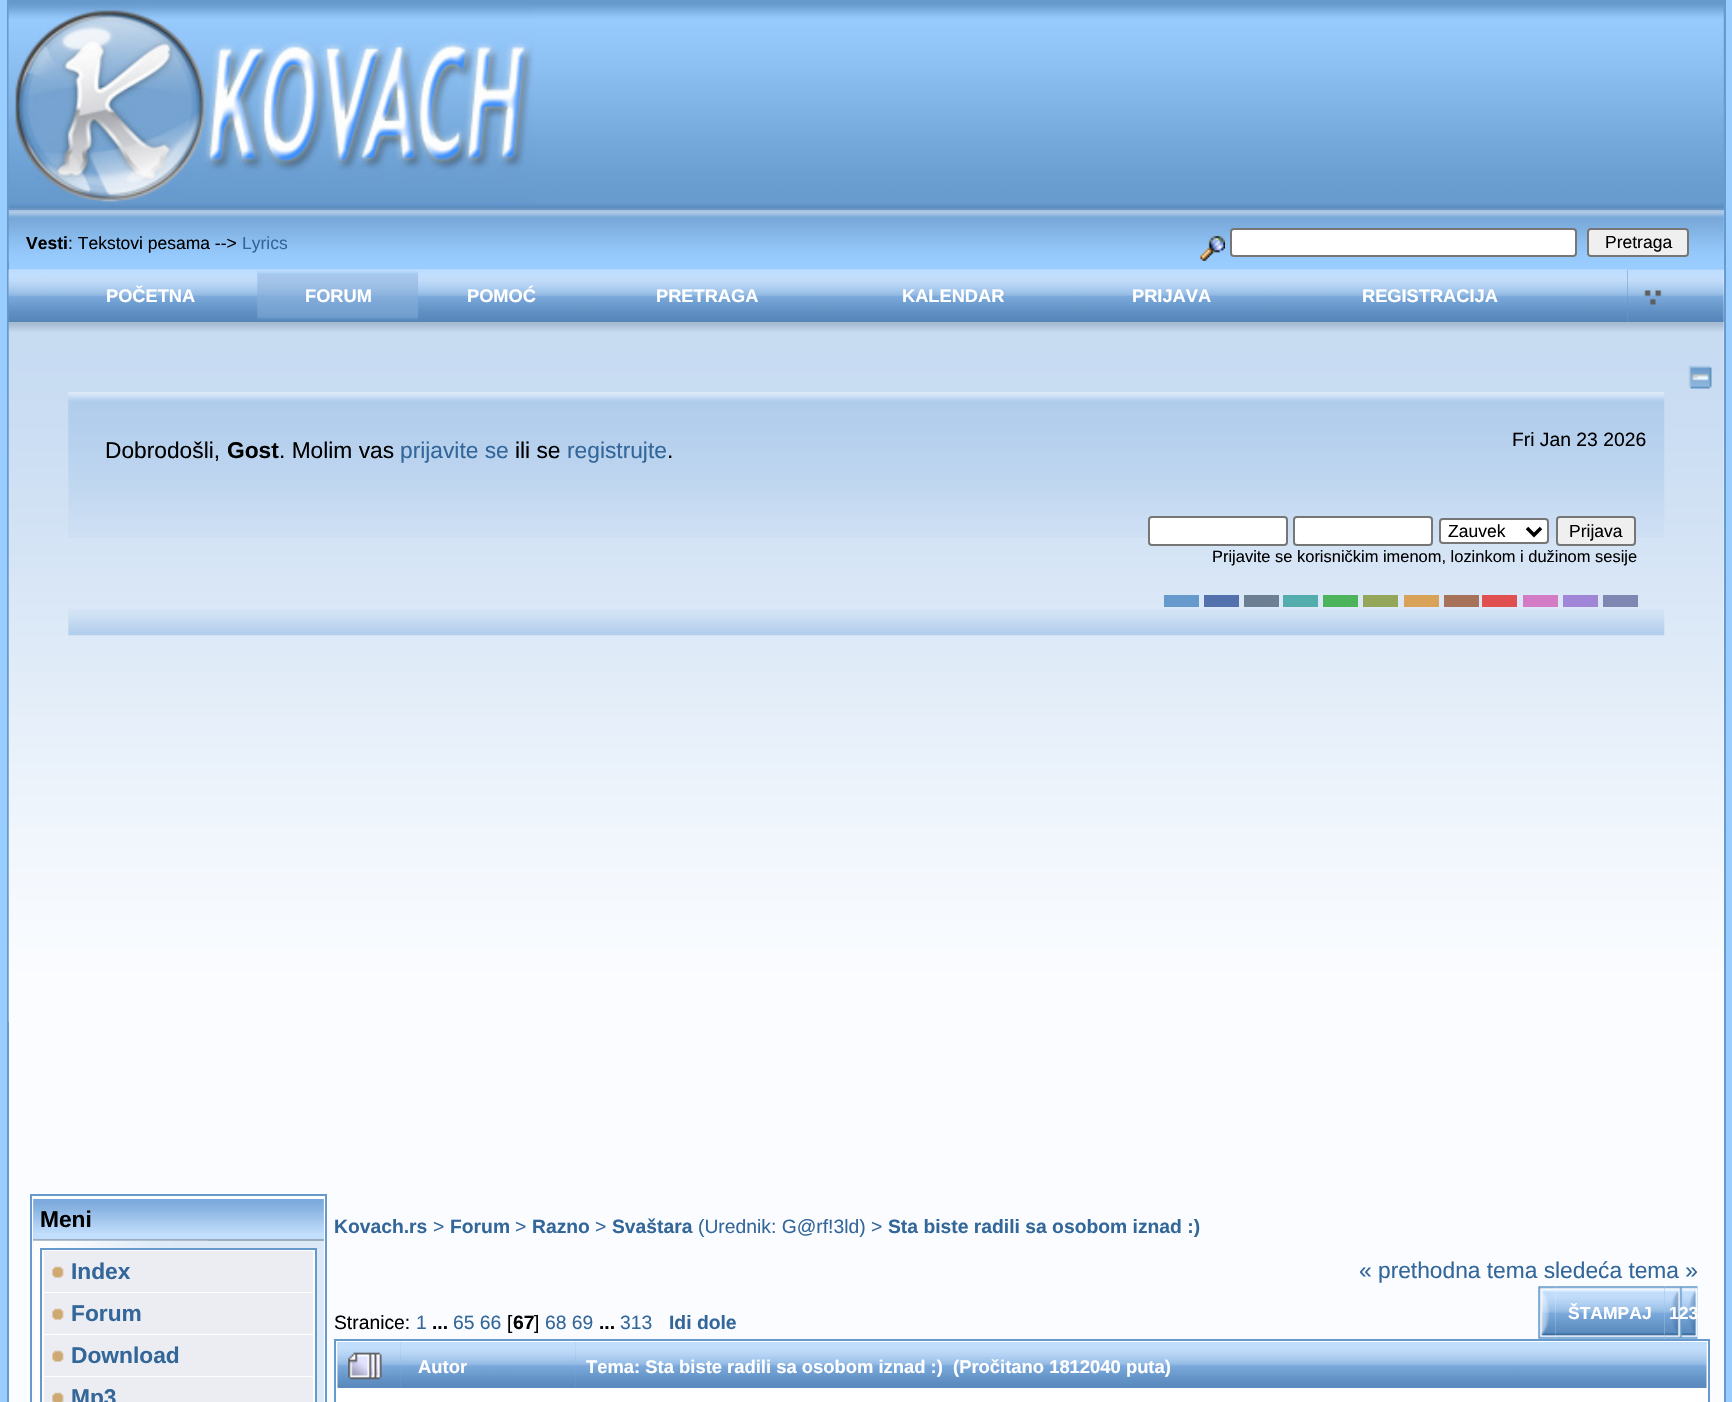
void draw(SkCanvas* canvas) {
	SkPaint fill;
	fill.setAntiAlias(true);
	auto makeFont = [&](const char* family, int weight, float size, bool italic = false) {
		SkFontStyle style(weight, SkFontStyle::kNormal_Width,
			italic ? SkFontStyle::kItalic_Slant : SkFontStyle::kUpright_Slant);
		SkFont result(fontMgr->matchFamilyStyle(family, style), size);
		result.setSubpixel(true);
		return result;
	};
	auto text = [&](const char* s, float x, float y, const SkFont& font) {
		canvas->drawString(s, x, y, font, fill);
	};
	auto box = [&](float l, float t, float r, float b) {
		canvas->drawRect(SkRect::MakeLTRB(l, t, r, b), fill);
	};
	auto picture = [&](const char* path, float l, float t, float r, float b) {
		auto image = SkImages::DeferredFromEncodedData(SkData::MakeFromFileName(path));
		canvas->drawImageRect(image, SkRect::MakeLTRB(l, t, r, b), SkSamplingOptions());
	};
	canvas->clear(0xFF99CCFF);
	fill.setColor(0xFFFAFCFF);
	box(9, 270, 1724, 1402);
	fill.setColor(0xFF6699CC);
	box(1724, 0, 1726, 1402);
	box(7, 0, 9, 1402);
	box(533, 0, 1724, 210);
	picture("image0.png", 8, 5, 1724, 210);
	picture("image1.png", 8, 0, 534, 206);
	picture("image2.png", 8, 210, 1724, 263);
	picture("image3.png", 1200, 236, 1225, 261);
	fill.setColor(0xFFFFFFFF);
	canvas->drawRoundRect(SkRect::MakeLTRB(1231, 229, 1576, 256), 3, 3, fill);
	fill.setStyle(SkPaint::kStroke_Style);
	fill.setStrokeWidth(2);
	fill.setColor(0xFF767676);
	canvas->drawRoundRect(SkRect::MakeLTRB(1231, 229, 1576, 256), 3, 3, fill);
	fill.setStyle(SkPaint::kFill_Style);
	fill.setColor(0xFFEFEFEF);
	canvas->drawRoundRect(SkRect::MakeLTRB(1588, 229, 1688, 256), 3, 3, fill);
	fill.setStyle(SkPaint::kStroke_Style);
	fill.setColor(0xFF767676);
	canvas->drawRoundRect(SkRect::MakeLTRB(1588, 229, 1688, 256), 3, 3, fill);
	picture("image4.png", 8, 269, 1724, 322);
	picture("image5.png", 8, 269, 44, 322);
	picture("image6.png", 43, 269, 257, 322);
	picture("image7.png", 257, 269, 419, 322);
	picture("image8.png", 418, 269, 585, 322);
	picture("image9.png", 584, 269, 830, 322);
	picture("image10.png", 829, 269, 1076, 322);
	picture("image11.png", 1076, 269, 1265, 322);
	picture("image12.png", 1265, 269, 1593, 322);
	fill.setStyle(SkPaint::kFill_Style);
	fill.setColor(0xFF6699CC);
	box(1627, 270, 1628, 322);
	picture("image13.png", 1592, 269, 1628, 322);
	picture("image14.png", 1644, 290, 1662, 305);
	picture("image15.png", 8, 322, 1724, 1022);
	picture("image16.png", 1688, 365, 1712, 389);
	picture("image17.png", 68, 392, 1665, 538);
	fill.setColor(0xFFFFFFFF);
	canvas->drawRoundRect(SkRect::MakeLTRB(1149, 517, 1287, 545), 3, 3, fill);
	fill.setStyle(SkPaint::kStroke_Style);
	fill.setColor(0xFF767676);
	canvas->drawRoundRect(SkRect::MakeLTRB(1149, 517, 1287, 545), 3, 3, fill);
	fill.setStyle(SkPaint::kFill_Style);
	fill.setColor(0xFFFFFFFF);
	canvas->drawRoundRect(SkRect::MakeLTRB(1294, 517, 1432, 545), 3, 3, fill);
	fill.setStyle(SkPaint::kStroke_Style);
	fill.setColor(0xFF767676);
	canvas->drawRoundRect(SkRect::MakeLTRB(1294, 517, 1432, 545), 3, 3, fill);
	fill.setStyle(SkPaint::kFill_Style);
	fill.setColor(0xFFFFFFFF);
	canvas->drawRoundRect(SkRect::MakeLTRB(1440, 519, 1548, 543), 3, 3, fill);
	fill.setStyle(SkPaint::kStroke_Style);
	fill.setColor(0xFF767676);
	canvas->drawRoundRect(SkRect::MakeLTRB(1440, 519, 1548, 543), 3, 3, fill);
	fill.setStrokeWidth(3.5f);
	fill.setColor(0xFF000000);
	canvas->drawPath(SkPathBuilder().moveTo(1527, 528).lineTo(1534, 535).lineTo(1541, 528).detach(), fill);
	fill.setStyle(SkPaint::kFill_Style);
	fill.setColor(0xFFEFEFEF);
	canvas->drawRoundRect(SkRect::MakeLTRB(1557, 517, 1635, 545), 3, 3, fill);
	fill.setStyle(SkPaint::kStroke_Style);
	fill.setStrokeWidth(2);
	fill.setColor(0xFF767676);
	canvas->drawRoundRect(SkRect::MakeLTRB(1557, 517, 1635, 545), 3, 3, fill);
	picture("image18.png", 68, 609, 1665, 636);
	fill.setStyle(SkPaint::kFill_Style);
	fill.setColor(0xFF6699CC);
	box(1164, 595, 1199, 607);
	fill.setColor(0xFF5371AD);
	box(1204, 595, 1239, 607);
	fill.setColor(0xFF6C7F93);
	box(1244, 595, 1279, 607);
	fill.setColor(0xFF53ADAD);
	box(1283, 595, 1318, 607);
	fill.setColor(0xFF4DB45D);
	box(1323, 595, 1358, 607);
	fill.setColor(0xFF93A659);
	box(1363, 595, 1398, 607);
	fill.setColor(0xFFD8A259);
	box(1404, 595, 1439, 607);
	fill.setColor(0xFFA67259);
	box(1444, 595, 1479, 607);
	fill.setColor(0xFFE15050);
	box(1482, 595, 1517, 607);
	fill.setColor(0xFFD47BC5);
	box(1523, 595, 1558, 607);
	fill.setColor(0xFFA185D6);
	box(1563, 595, 1598, 607);
	fill.setColor(0xFF7F88B2);
	box(1603, 595, 1638, 607);
	fill.setColor(0xFFFFFFFF);
	canvas->drawRect(SkRect::MakeLTRB(31, 1195, 326, 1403), fill);
	fill.setStyle(SkPaint::kStroke_Style);
	fill.setColor(0xFF6699CC);
	canvas->drawRect(SkRect::MakeLTRB(31, 1195, 326, 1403), fill);
	fill.setStyle(SkPaint::kFill_Style);
	fill.setColor(0xFFC1DEFC);
	box(33, 1199, 324, 1239);
	picture("image19.png", 33, 1199, 324, 1233);
	fill.setColor(0xFF9BAEBF);
	box(33, 1239, 324, 1241);
	fill.setColor(0xFFDDE9F7);
	box(33, 1241, 324, 1402);
	picture("image20.png", 33, 1240, 209, 1402);
	fill.setColor(0xFFFFFFFF);
	box(51, 1250, 315, 1402);
	fill.setStyle(SkPaint::kStroke_Style);
	fill.setColor(0xFF6699CC);
	canvas->drawRect(SkRect::MakeLTRB(41, 1249, 316, 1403), fill);
	fill.setStyle(SkPaint::kFill_Style);
	fill.setColor(0xFFECEDF3);
	box(44, 1251, 313, 1292);
	picture("image21.png", 52, 1266, 64, 1278);
	box(44, 1293, 313, 1334);
	picture("image21.png", 52, 1308, 64, 1320);
	box(44, 1335, 313, 1376);
	picture("image21.png", 52, 1350, 64, 1362);
	box(44, 1377, 313, 1402);
	picture("image22.png", 52, 1392, 64, 1402);
	picture("image23.png", 1538, 1286, 1556, 1339);
	picture("image24.png", 1555, 1286, 1665, 1339);
	picture("image25.png", 1664, 1286, 1698, 1339);
	fill.setColor(0xFFFFFFFF);
	box(336, 1341, 1708, 1402);
	fill.setColor(0xFF6699CC);
	box(334, 1339, 1710, 1341);
	box(1708, 1339, 1710, 1402);
	box(334, 1339, 336, 1402);
	picture("image26.png", 337, 1342, 401, 1388);
	picture("image27.png", 348, 1352, 382, 1380);
	picture("image28.png", 400, 1342, 576, 1388);
	picture("image29.png", 575, 1342, 1707, 1388);
	auto font1 = makeFont("Liberation Sans", 700, 17.5f);
	fill.setColor(0xFF000000);
	text("Vesti", 26, 249, font1);
	auto font2 = makeFont("Liberation Sans", 400, 17.5f);
	text(": Tekstovi pesama -->", 68, 249, font2);
	fill.setColor(0xFF336699);
	text("Lyrics", 242, 249, font2);
	fill.setColor(0xFF000000);
	text("Pretraga", 1605, 248, font2);
	auto font3 = makeFont("Liberation Sans", 700, 18.25f);
	fill.setColor(0xFFFFFFFF);
	text("POČETNA", 106, 302, font3);
	text("FORUM", 305, 302, font3);
	text("POMOĆ", 467, 302, font3);
	text("PRETRAGA", 656, 302, font3);
	text("KALENDAR", 902, 302, font3);
	text("PRIJAVA", 1132, 302, font3);
	text("REGISTRACIJA", 1362, 302, font3);
	auto font4 = makeFont("Liberation Sans", 400, 19.3f);
	fill.setColor(0xFF000000);
	text("Fri Jan 23 2026", 1512, 446, font4);
	auto font5 = makeFont("Liberation Sans", 400, 22.75f);
	text("Dobrodošli,", 105, 458, font5);
	auto font6 = makeFont("Liberation Sans", 700, 22.75f);
	text("Gost", 227, 458, font6);
	text(". Molim vas", 279, 458, font5);
	fill.setColor(0xFF336699);
	text("prijavite se", 400, 458, font5);
	fill.setColor(0xFF000000);
	text("ili se", 515, 458, font5);
	fill.setColor(0xFF336699);
	text("registrujte", 567, 458, font5);
	fill.setColor(0xFF000000);
	text(".", 667, 458, font5);
	text("Zauvek", 1448, 537, font2);
	text("Prijava", 1569, 537, font2);
	auto font7 = makeFont("Liberation Sans", 400, 16.45f);
	text("Prijavite se korisničkim imenom, lozinkom i dužinom sesije", 1212, 562, font7);
	text("Meni", 40, 1227, font6);
	fill.setColor(0xFF336699);
	text("Index", 71, 1279, font6);
	text("Forum", 71, 1321, font6);
	text("Download", 71, 1363, font6);
	text("Mp3", 71, 1405, font6);
	auto font8 = makeFont("Liberation Sans", 700, 19.3f);
	text("Kovach.rs", 334, 1233, font8);
	text(">", 433, 1233, font4);
	text("Forum", 450, 1233, font8);
	text(">", 515, 1233, font4);
	text("Razno", 532, 1233, font8);
	text(">", 595, 1233, font4);
	text("Svaštara", 612, 1233, font8);
	text("(Urednik: G@rf!3ld) >", 698, 1233, font4);
	text("Sta biste radili sa osobom iznad :)", 888, 1233, font8);
	text("« prethodna tema sledeća tema »", 1359, 1278, font5);
	fill.setColor(0xFFFFFFFF);
	text("ŠTAMPAJ", 1568, 1319, font1);
	text("123", 1669, 1319, font1);
	fill.setColor(0xFF000000);
	text("Stranice:", 334, 1329, font4);
	fill.setColor(0xFF336699);
	text("1", 416, 1329, font4);
	fill.setColor(0xFF000000);
	text("...", 432, 1329, font8);
	fill.setColor(0xFF336699);
	text("65 66", 453, 1329, font4);
	fill.setColor(0xFF000000);
	text("[", 507, 1329, font4);
	text("67", 513, 1329, font8);
	text("]", 534, 1329, font4);
	fill.setColor(0xFF336699);
	text("68 69", 545, 1329, font4);
	fill.setColor(0xFF000000);
	text("...", 599, 1329, font8);
	fill.setColor(0xFF336699);
	text("313", 620, 1329, font4);
	text("Idi dole", 669, 1329, font8);
	auto font9 = makeFont("Liberation Sans", 700, 18.4f);
	fill.setColor(0xFFFFFFFF);
	text("Autor", 418, 1373, font9);
	text("Tema: Sta biste radili sa osobom iznad :)  (Pročitano 1812040 puta)", 586, 1373, font9);
}
